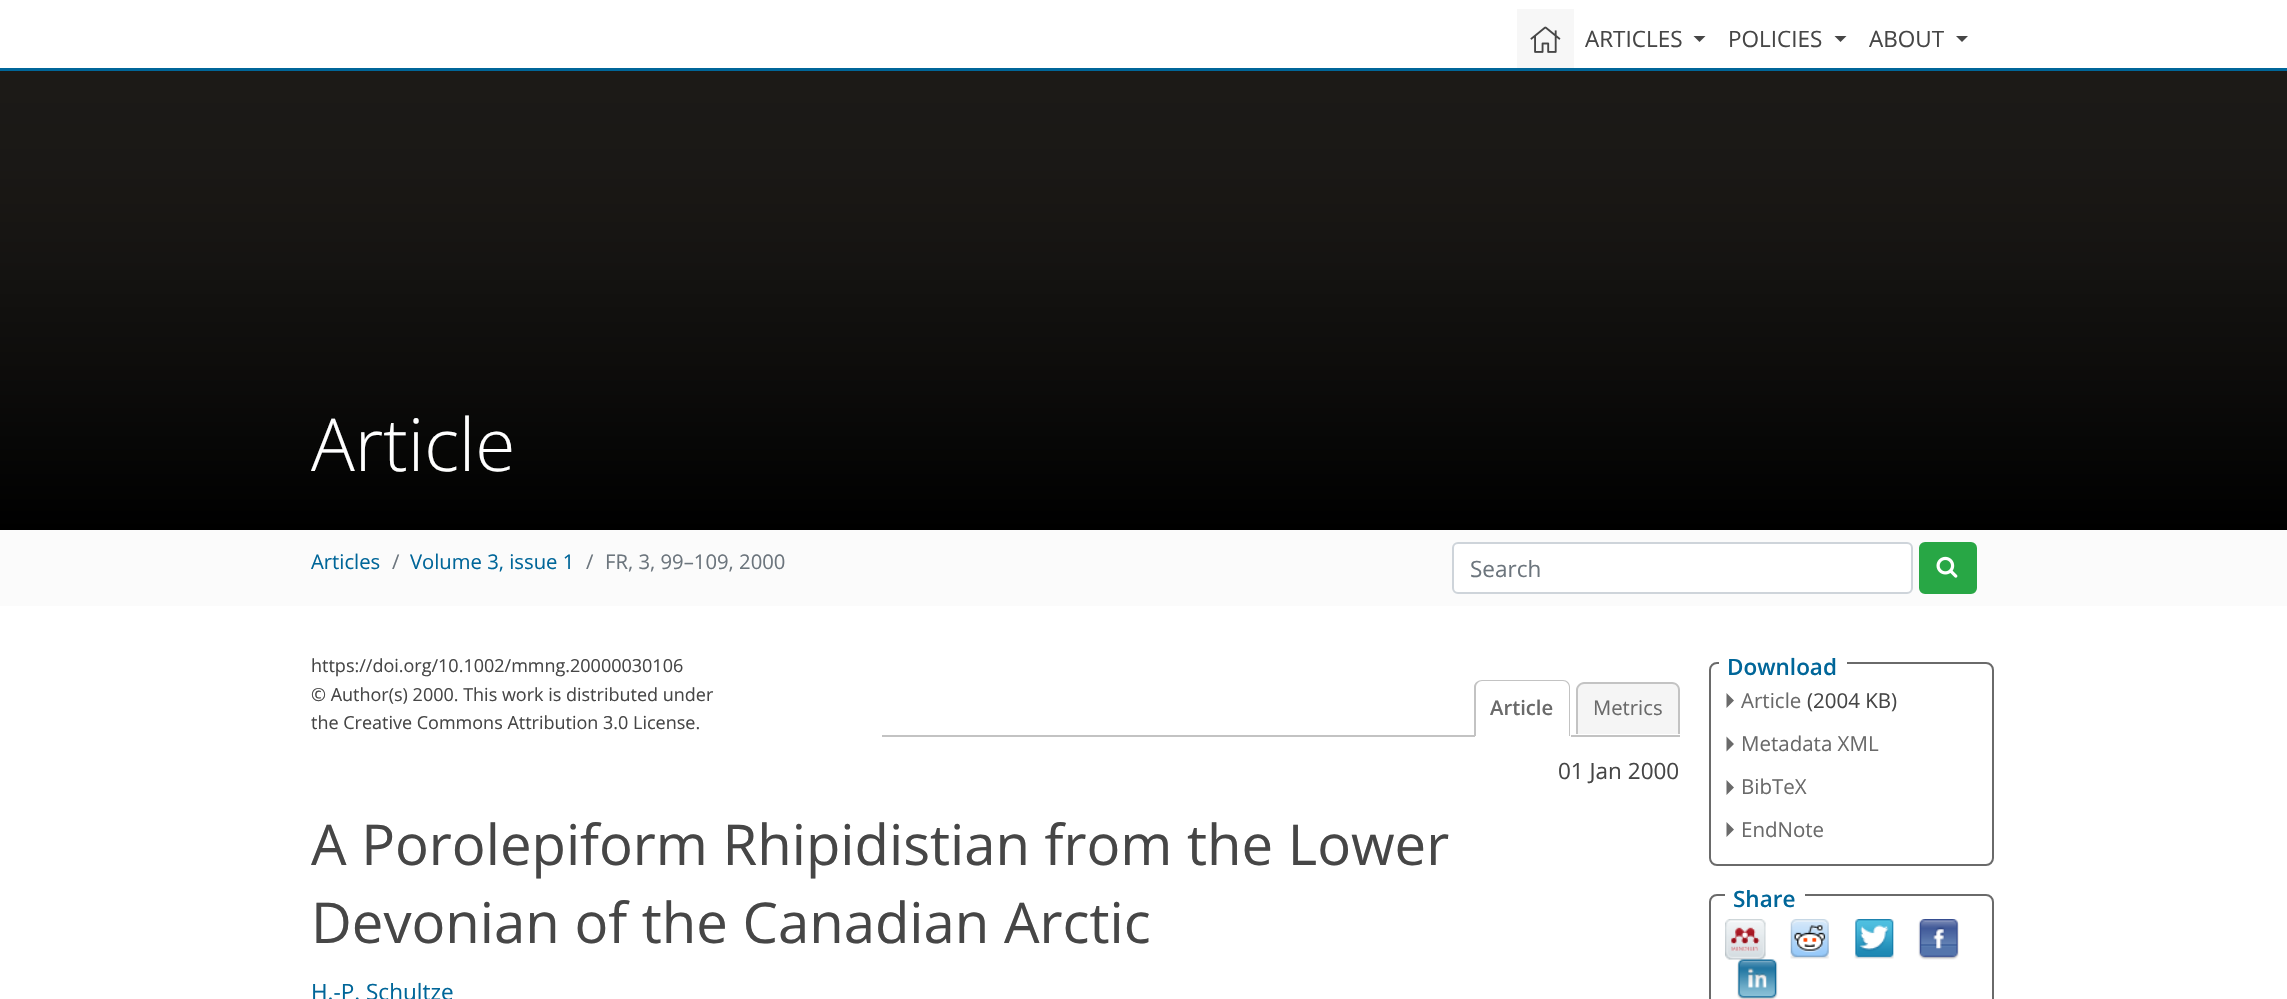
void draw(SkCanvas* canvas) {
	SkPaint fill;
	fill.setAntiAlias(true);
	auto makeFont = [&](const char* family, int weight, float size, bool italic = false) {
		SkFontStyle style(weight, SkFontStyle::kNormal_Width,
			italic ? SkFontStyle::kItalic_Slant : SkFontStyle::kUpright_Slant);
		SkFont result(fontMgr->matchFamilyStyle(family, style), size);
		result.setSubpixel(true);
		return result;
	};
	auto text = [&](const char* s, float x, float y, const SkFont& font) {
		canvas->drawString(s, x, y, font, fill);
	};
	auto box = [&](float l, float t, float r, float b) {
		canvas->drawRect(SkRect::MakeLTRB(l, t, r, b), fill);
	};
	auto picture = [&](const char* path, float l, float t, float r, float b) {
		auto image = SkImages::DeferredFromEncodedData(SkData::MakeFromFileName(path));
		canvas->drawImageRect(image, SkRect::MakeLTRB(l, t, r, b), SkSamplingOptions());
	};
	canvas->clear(0xFFFFFFFF);
	fill.setColor(0xFF006699);
	box(0, 68, 2287, 71);
	fill.setColor(0xFFF7F7F7);
	box(1517, 9, 1574, 68);
	picture("image0.png", 1530, 26, 1561, 53);
	fill.setColor(0xFF464646);
	canvas->drawPath(SkPathBuilder().moveTo(1693.5f, 36).lineTo(1705.5f, 36).lineTo(1699.5f, 42).close().detach(), fill);
	canvas->drawPath(SkPathBuilder().moveTo(1834.5f, 36).lineTo(1846.5f, 36).lineTo(1840.5f, 42).close().detach(), fill);
	canvas->drawPath(SkPathBuilder().moveTo(1956, 36).lineTo(1968, 36).lineTo(1962, 42).close().detach(), fill);
	{
		const SkColor colors[] = {0xFF000000, 0xFF070706, 0xFF0D0C0B, 0xFF11100E, 0xFF141311, 0xFF171513, 0xFF191714, 0xFF1A1816, 0xFF1B1916, 0xFF1B1917, 0xFF1C1A17, 0xFF1C1A17};
		const float stops[] = {0, 0.19f, 0.34f, 0.47f, 0.56f, 0.65f, 0.73f, 0.8f, 0.86f, 0.91f, 0.95f, 1};
		const SkPoint ends[] = {{1144, 530}, {1144, 71}};
		fill.setShader(SkGradientShader::MakeLinear(ends, colors, stops, 12, SkTileMode::kClamp));
		fill.setAlpha(255);
	}
	box(0, 71, 2287, 530);
	fill.setShader(nullptr);
	fill.setColor(0xFFFBFBFB);
	box(0, 530, 2287, 606);
	fill.setColor(0xFFFFFFFF);
	canvas->drawRoundRect(SkRect::MakeLTRB(1453, 543, 1912, 593), 5, 5, fill);
	fill.setStyle(SkPaint::kStroke_Style);
	fill.setStrokeWidth(2);
	fill.setColor(0xFFCED4DA);
	canvas->drawRoundRect(SkRect::MakeLTRB(1453, 543, 1912, 593), 5, 5, fill);
	fill.setStyle(SkPaint::kFill_Style);
	fill.setColor(0xFF28A745);
	canvas->drawRoundRect(SkRect::MakeLTRB(1920, 543, 1976, 593), 5, 5, fill);
	fill.setStyle(SkPaint::kStroke_Style);
	canvas->drawRoundRect(SkRect::MakeLTRB(1920, 543, 1976, 593), 5, 5, fill);
	picture("image1.png", 1936, 556, 1958, 578);
	fill.setStyle(SkPaint::kFill_Style);
	fill.setColor(0xFFC3C3C3);
	box(882, 735, 1680, 737);
	fill.setColor(0xFFFFFFFF);
	canvas->drawPath(SkPathBuilder().moveTo(1483, 680).lineTo(1563, 680).cubicTo(1567.5f, 680, 1571, 683.5f, 1571, 688).lineTo(1571, 737).lineTo(1475, 737).lineTo(1475, 688).cubicTo(1475, 683.5f, 1478.5f, 680, 1483, 680).close().detach(), fill);
	fill.setColor(0xFFC3C3C3);
	canvas->drawPath(SkPathBuilder(SkPathFillType::kEvenOdd).moveTo(1482, 680).lineTo(1563, 680).cubicTo(1567, 680, 1570, 683, 1570, 687).lineTo(1570, 736).lineTo(1474, 736).lineTo(1474, 687).cubicTo(1474, 683, 1478, 680, 1482, 680).close().moveTo(1482, 681).lineTo(1563, 681).cubicTo(1566, 681, 1569, 684, 1569, 687).lineTo(1569, 736).lineTo(1476, 736).lineTo(1476, 687).cubicTo(1476, 684, 1479, 681, 1482, 681).close().detach(), fill);
	fill.setColor(0xFFF5F5F5);
	canvas->drawPath(SkPathBuilder().moveTo(1585, 683).lineTo(1672, 683).cubicTo(1676.5f, 683, 1680, 686.5f, 1680, 691).lineTo(1680, 734).lineTo(1577, 734).lineTo(1577, 691).cubicTo(1577, 686.5f, 1580.5f, 683, 1585, 683).close().detach(), fill);
	fill.setColor(0xFFC3C3C3);
	canvas->drawPath(SkPathBuilder(SkPathFillType::kEvenOdd).moveTo(1584, 682).lineTo(1672, 682).cubicTo(1677, 682, 1680, 686, 1680, 690).lineTo(1680, 734).lineTo(1576, 734).lineTo(1576, 690).cubicTo(1576, 686, 1580, 682, 1584, 682).close().moveTo(1584, 684).lineTo(1672, 684).cubicTo(1676, 684, 1678, 687, 1678, 690).lineTo(1678, 734).lineTo(1578, 734).lineTo(1578, 690).cubicTo(1578, 687, 1581, 684, 1584, 684).close().detach(), fill);
	fill.setStyle(SkPaint::kStroke_Style);
	fill.setColor(0xFF6A6A6A);
	canvas->drawRoundRect(SkRect::MakeLTRB(1710, 663, 1993, 865), 7, 7, fill);
	fill.setStyle(SkPaint::kFill_Style);
	fill.setColor(0xFFFFFFFF);
	box(1719, 662, 1847, 664);
	fill.setColor(0xFF6A6A6A);
	canvas->drawPath(SkPathBuilder().moveTo(1726.5f, 708).lineTo(1726.5f, 693).lineTo(1734, 700.5f).close().moveTo(1726.5f, 751.5f).lineTo(1726.5f, 736.5f).lineTo(1734, 744).close().detach(), fill);
	canvas->drawPath(SkPathBuilder().moveTo(1726.5f, 795).lineTo(1726.5f, 780).lineTo(1734, 787.5f).close().moveTo(1726.5f, 837).lineTo(1726.5f, 822).lineTo(1734, 829.5f).close().detach(), fill);
	fill.setStyle(SkPaint::kStroke_Style);
	canvas->drawRoundRect(SkRect::MakeLTRB(1710, 895, 1993, 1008), 7, 7, fill);
	fill.setStyle(SkPaint::kFill_Style);
	fill.setColor(0xFFFFFFFF);
	box(1725, 894, 1805, 896);
	picture("image2.png", 1725, 919, 1766, 960);
	picture("image3.png", 1790, 919, 1829, 959);
	picture("image4.png", 1854, 919, 1894, 959);
	picture("image5.png", 1918, 919, 1959, 960);
	picture("image6.png", 1737, 959, 1778, 999);
	auto font1 = makeFont("Open Sans", 400, 22.5f);
	fill.setColor(0xFF464646);
	text("ARTICLES", 1585, 47, font1);
	text("POLICIES", 1728, 47, font1);
	text("ABOUT", 1869, 47, font1);
	auto font2 = makeFont("Open Sans", 300, 73);
	fill.setColor(0xFFFFFFFF);
	text("Article", 311, 471, font2);
	auto font3 = makeFont("Open Sans", 400, 20.25f);
	fill.setColor(0xFF006699);
	text("Articles", 311, 569, font3);
	fill.setColor(0xFF6C757D);
	text("/", 392, 569, font3);
	fill.setColor(0xFF006699);
	text("Volume 3, issue 1", 410, 569, font3);
	fill.setColor(0xFF6C757D);
	text("/", 586, 569, font3);
	text("FR, 3, 99–109, 2000", 605, 569, font3);
	text("Search", 1470, 577, font1);
	auto font4 = makeFont("Open Sans", 400, 18);
	fill.setColor(0xFF464646);
	text("https://doi.org/10.1002/mmng.20000030106", 311, 672, font4);
	text("© Author(s) 2000. This work is distributed under", 311, 701, font4);
	text("the Creative Commons Attribution 3.0 License.", 311, 729, font4);
	auto font5 = makeFont("Open Sans", 600, 20.25f);
	fill.setColor(0xFF6A6A6A);
	text("Article", 1490, 715, font5);
	text("Metrics", 1593, 715, font3);
	fill.setColor(0xFF464646);
	text("01 Jan 2000", 1558, 779, font1);
	auto font6 = makeFont("Open Sans", 400, 56.25f);
	text("A Porolepiform Rhipidistian from the Lower", 311, 865, font6);
	text("Devonian of the Canadian Arctic", 311, 943, font6);
	fill.setColor(0xFF006699);
	text("H.-P. Schultze", 311, 1000, font1);
	auto font7 = makeFont("Open Sans", 600, 22.5f);
	text("Download", 1727, 675, font7);
	auto font8 = makeFont("Open Sans", 400, 20.5f);
	fill.setColor(0xFF6A6A6A);
	text("Article", 1741, 708, font8);
	fill.setColor(0xFF464646);
	text("(2004 KB)", 1807, 708, font8);
	fill.setColor(0xFF6A6A6A);
	text("Metadata XML", 1741, 751, font8);
	text("BibTeX", 1741, 794, font8);
	text("EndNote", 1741, 837, font8);
	fill.setColor(0xFF006699);
	text("Share", 1733, 907, font7);
}
